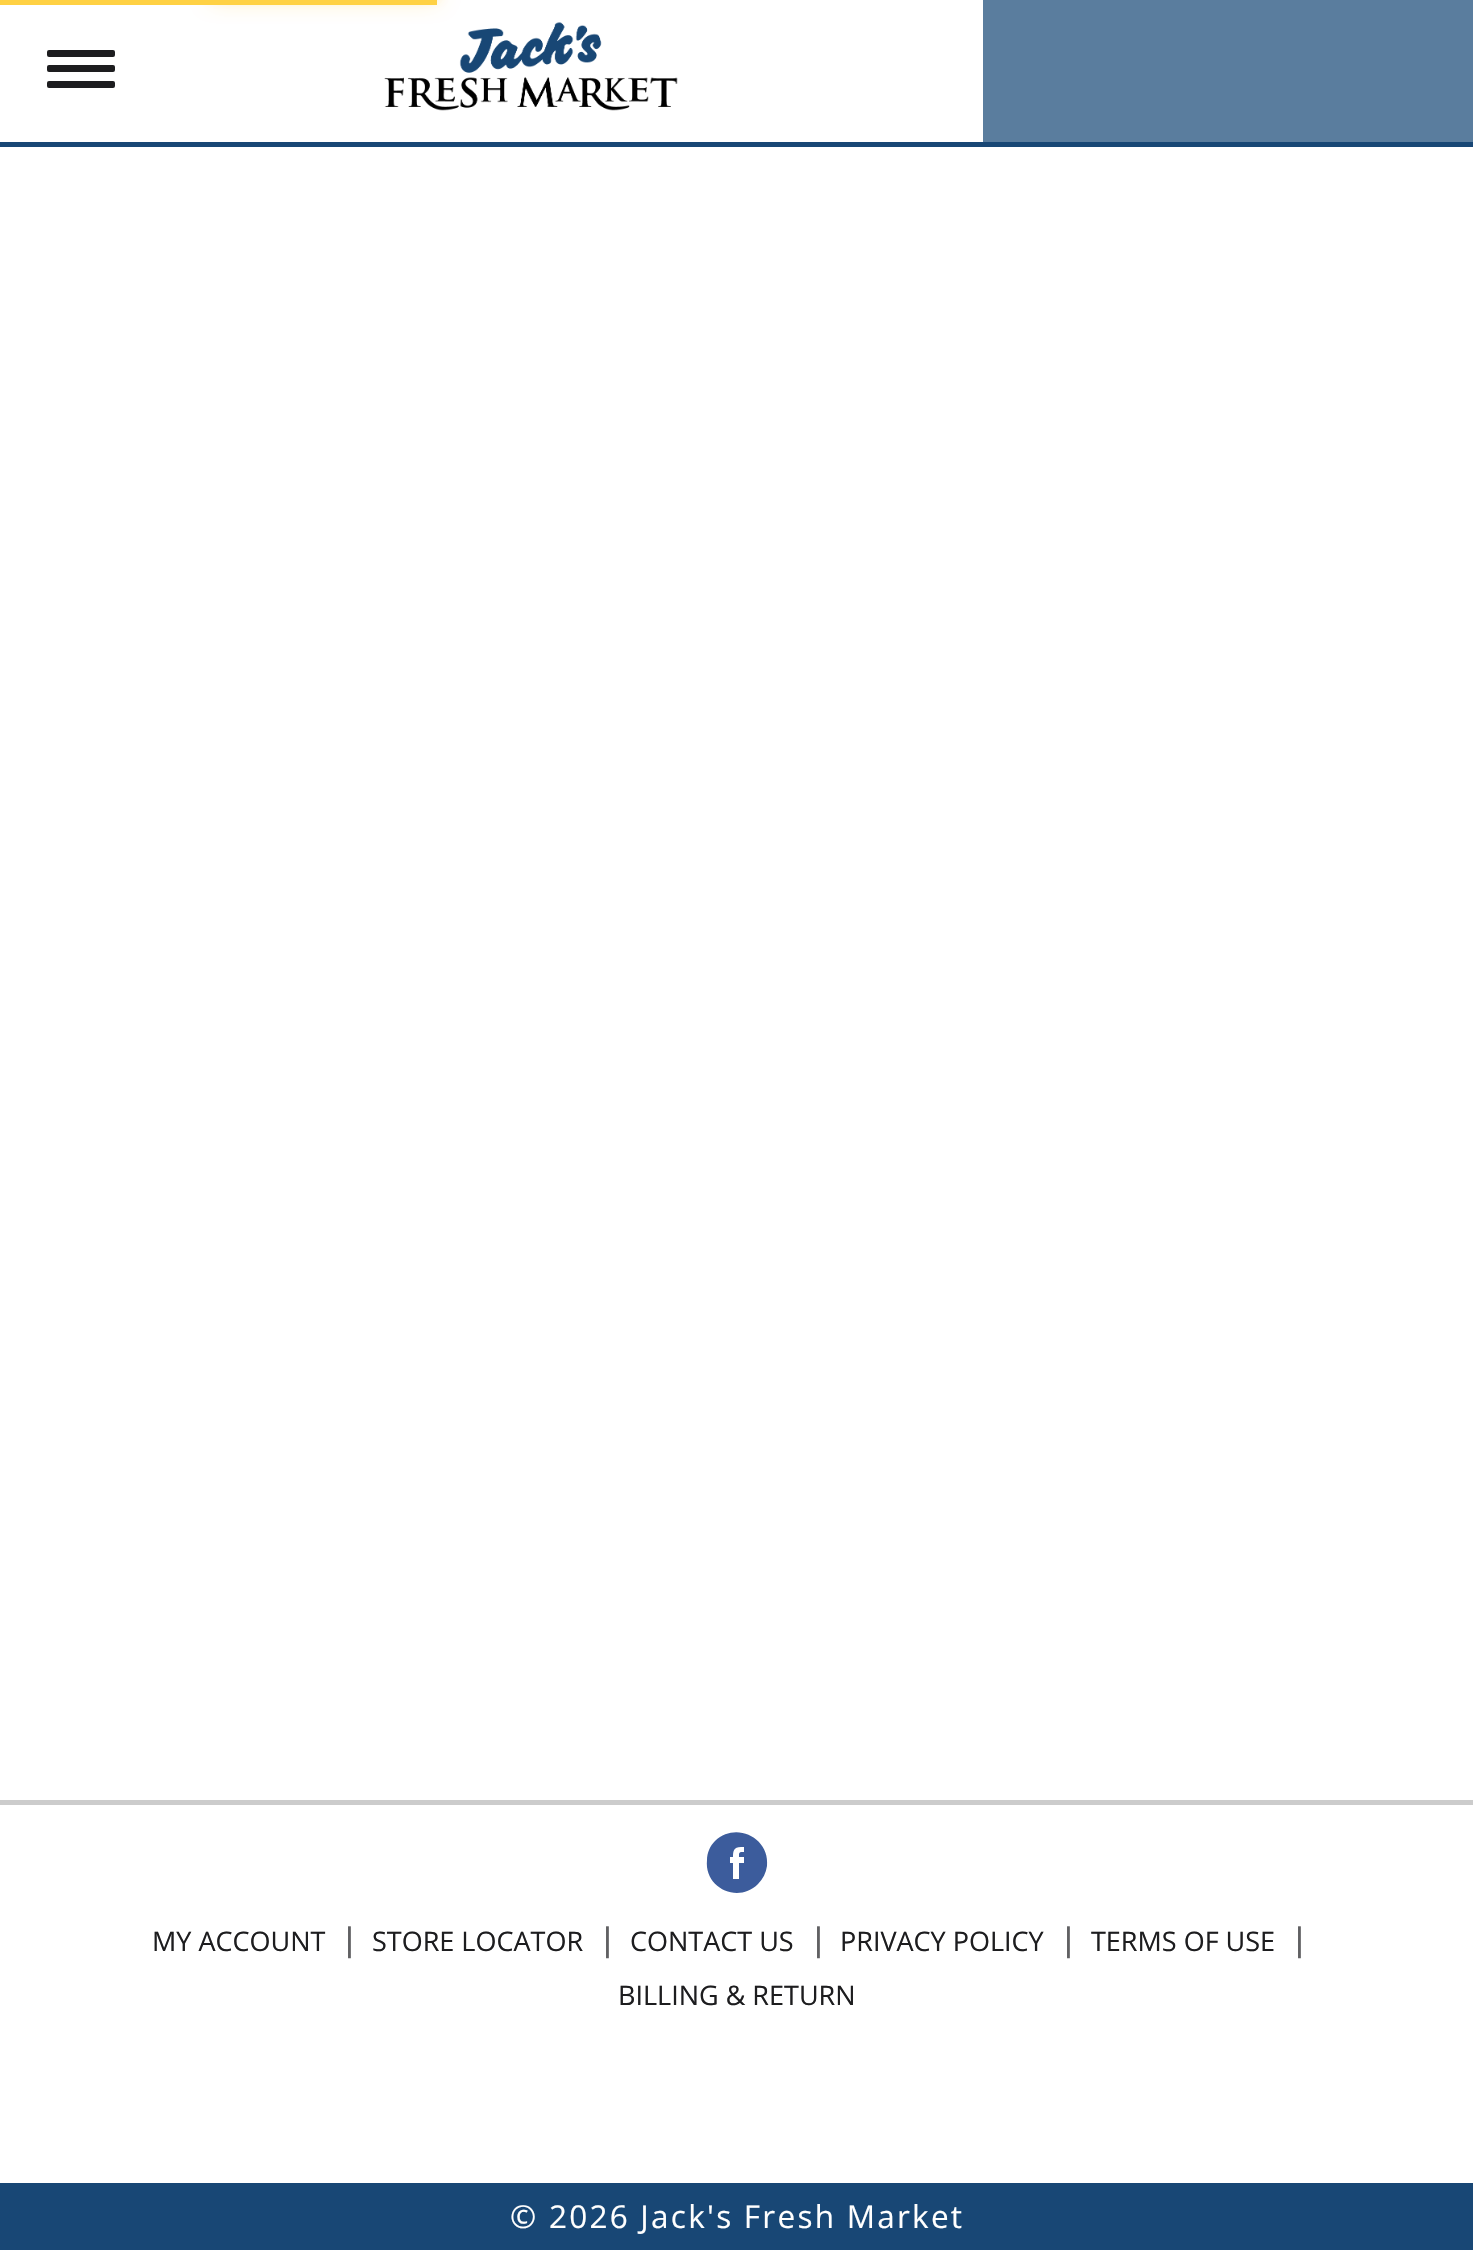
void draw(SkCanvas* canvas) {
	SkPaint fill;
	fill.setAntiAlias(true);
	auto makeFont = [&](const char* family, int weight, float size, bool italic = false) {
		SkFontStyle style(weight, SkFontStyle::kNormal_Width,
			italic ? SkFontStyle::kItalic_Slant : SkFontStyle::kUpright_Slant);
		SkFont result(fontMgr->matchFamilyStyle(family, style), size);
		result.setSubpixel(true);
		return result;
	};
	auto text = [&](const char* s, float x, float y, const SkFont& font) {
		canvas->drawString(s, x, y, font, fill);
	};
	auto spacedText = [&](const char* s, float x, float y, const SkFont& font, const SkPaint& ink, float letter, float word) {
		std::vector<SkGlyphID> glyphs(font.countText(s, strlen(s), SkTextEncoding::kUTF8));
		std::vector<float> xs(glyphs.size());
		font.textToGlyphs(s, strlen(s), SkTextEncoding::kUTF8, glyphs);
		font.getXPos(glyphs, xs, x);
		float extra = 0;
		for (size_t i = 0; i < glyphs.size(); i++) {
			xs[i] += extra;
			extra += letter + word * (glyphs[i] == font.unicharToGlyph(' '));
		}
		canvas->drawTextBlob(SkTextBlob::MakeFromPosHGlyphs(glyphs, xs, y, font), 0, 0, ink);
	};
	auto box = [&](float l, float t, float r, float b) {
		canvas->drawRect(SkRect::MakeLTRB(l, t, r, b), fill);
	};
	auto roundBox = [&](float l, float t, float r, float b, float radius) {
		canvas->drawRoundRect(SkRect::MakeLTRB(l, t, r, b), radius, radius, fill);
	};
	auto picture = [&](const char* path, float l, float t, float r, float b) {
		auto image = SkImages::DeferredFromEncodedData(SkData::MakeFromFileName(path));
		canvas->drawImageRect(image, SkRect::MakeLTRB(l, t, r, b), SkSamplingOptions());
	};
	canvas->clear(0xFFFFFFFF);
	fill.setColor(0xFFFFD144);
	box(0, 0, 437, 5);
	canvas->save();
	canvas->clipPath(SkPathBuilder(SkPathFillType::kEvenOdd).moveTo(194, 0).lineTo(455, 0).lineTo(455, 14).lineTo(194, 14).close().moveTo(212, -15).lineTo(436.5f, -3).lineTo(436.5f, 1.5f).lineTo(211.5f, -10.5f).close().detach(), true);
	fill.setMaskFilter(SkMaskFilter::MakeBlur(kNormal_SkBlurStyle, 5.5f));
	canvas->drawRect(SkRect::MakeLTRB(212, -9, 437, -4), fill);
	fill.setMaskFilter(nullptr);
	canvas->restore();
	picture("image0.png", 384, 22, 678, 111);
	canvas->save();
	canvas->clipPath(SkPathBuilder(SkPathFillType::kEvenOdd).moveTo(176, 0).lineTo(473, 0).lineTo(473, 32).lineTo(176, 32).close().moveTo(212, -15).lineTo(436.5f, -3).lineTo(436.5f, 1.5f).lineTo(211.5f, -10.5f).close().detach(), true);
	fill.setMaskFilter(SkMaskFilter::MakeBlur(kNormal_SkBlurStyle, 11.5f));
	canvas->drawRect(SkRect::MakeLTRB(212, -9, 437, -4), fill);
	fill.setMaskFilter(nullptr);
	canvas->restore();
	fill.setColor(0xFF184775);
	box(0, 142, 1473, 147);
	fill.setColor(0xFF1D1D1F);
	roundBox(47, 50, 115, 57, 2);
	roundBox(47, 65, 115, 72, 2);
	roundBox(47, 81, 115, 88, 2);
	fill.setColor(0xFF5A7D9E);
	box(983, 0, 1473, 142);
	fill.setColor(0xFFCCCCCC);
	box(0, 1800, 1473, 1805);
	fill.setColor(0xFF3C5C9C);
	canvas->drawPath(SkPathBuilder().moveTo(758, 1884).cubicTo(738, 1904, 704, 1888, 707, 1860).cubicTo(707, 1853, 710, 1846, 715, 1841).cubicTo(736, 1821, 770, 1838, 767, 1866).cubicTo(766, 1873, 763, 1879, 758, 1884).close().moveTo(744, 1863).lineTo(744, 1857).lineTo(739, 1857).cubicTo(739, 1852, 739, 1852, 744, 1852).lineTo(744, 1847).cubicTo(735, 1847, 733, 1848, 733, 1857).lineTo(730, 1857).lineTo(730, 1863).lineTo(733, 1863).lineTo(733, 1879).lineTo(739, 1879).lineTo(739, 1863).close().detach(), fill);
	fill.setColor(0xFF184775);
	box(0, 2183, 1473, 2250);
	auto font1 = makeFont("Liberation Sans", 400, 34);
	fill.setColor(0xFF606062);
	text("|", 345, 1951, font1);
	auto font2 = makeFont("Open Sans", 400, 27);
	fill.setColor(0xFF1D1D1F);
	text("STORE LOCATOR", 372, 1951, font2);
	fill.setColor(0xFF606062);
	text("|", 603, 1951, font1);
	fill.setColor(0xFF1D1D1F);
	text("CONTACT US", 630, 1951, font2);
	fill.setColor(0xFF606062);
	text("|", 1295, 1951, font1);
	fill.setColor(0xFF1D1D1F);
	text("BILLING & RETURN", 618, 2005, font2);
	text("MY ACCOUNT", 152, 1951, font2);
	fill.setColor(0xFF606062);
	text("|", 814, 1951, font1);
	fill.setColor(0xFF1D1D1F);
	text("PRIVACY POLICY", 840, 1951, font2);
	fill.setColor(0xFF606062);
	text("|", 1064, 1951, font1);
	fill.setColor(0xFF1D1D1F);
	text("TERMS OF USE", 1091, 1951, font2);
	auto font3 = makeFont("Open Sans", 400, 31.5f);
	fill.setColor(0xFFFFFFFF);
	spacedText("© 2026 Jack's Fresh Market", 510, 2228, font3, fill, 2.25f, 0);
}
